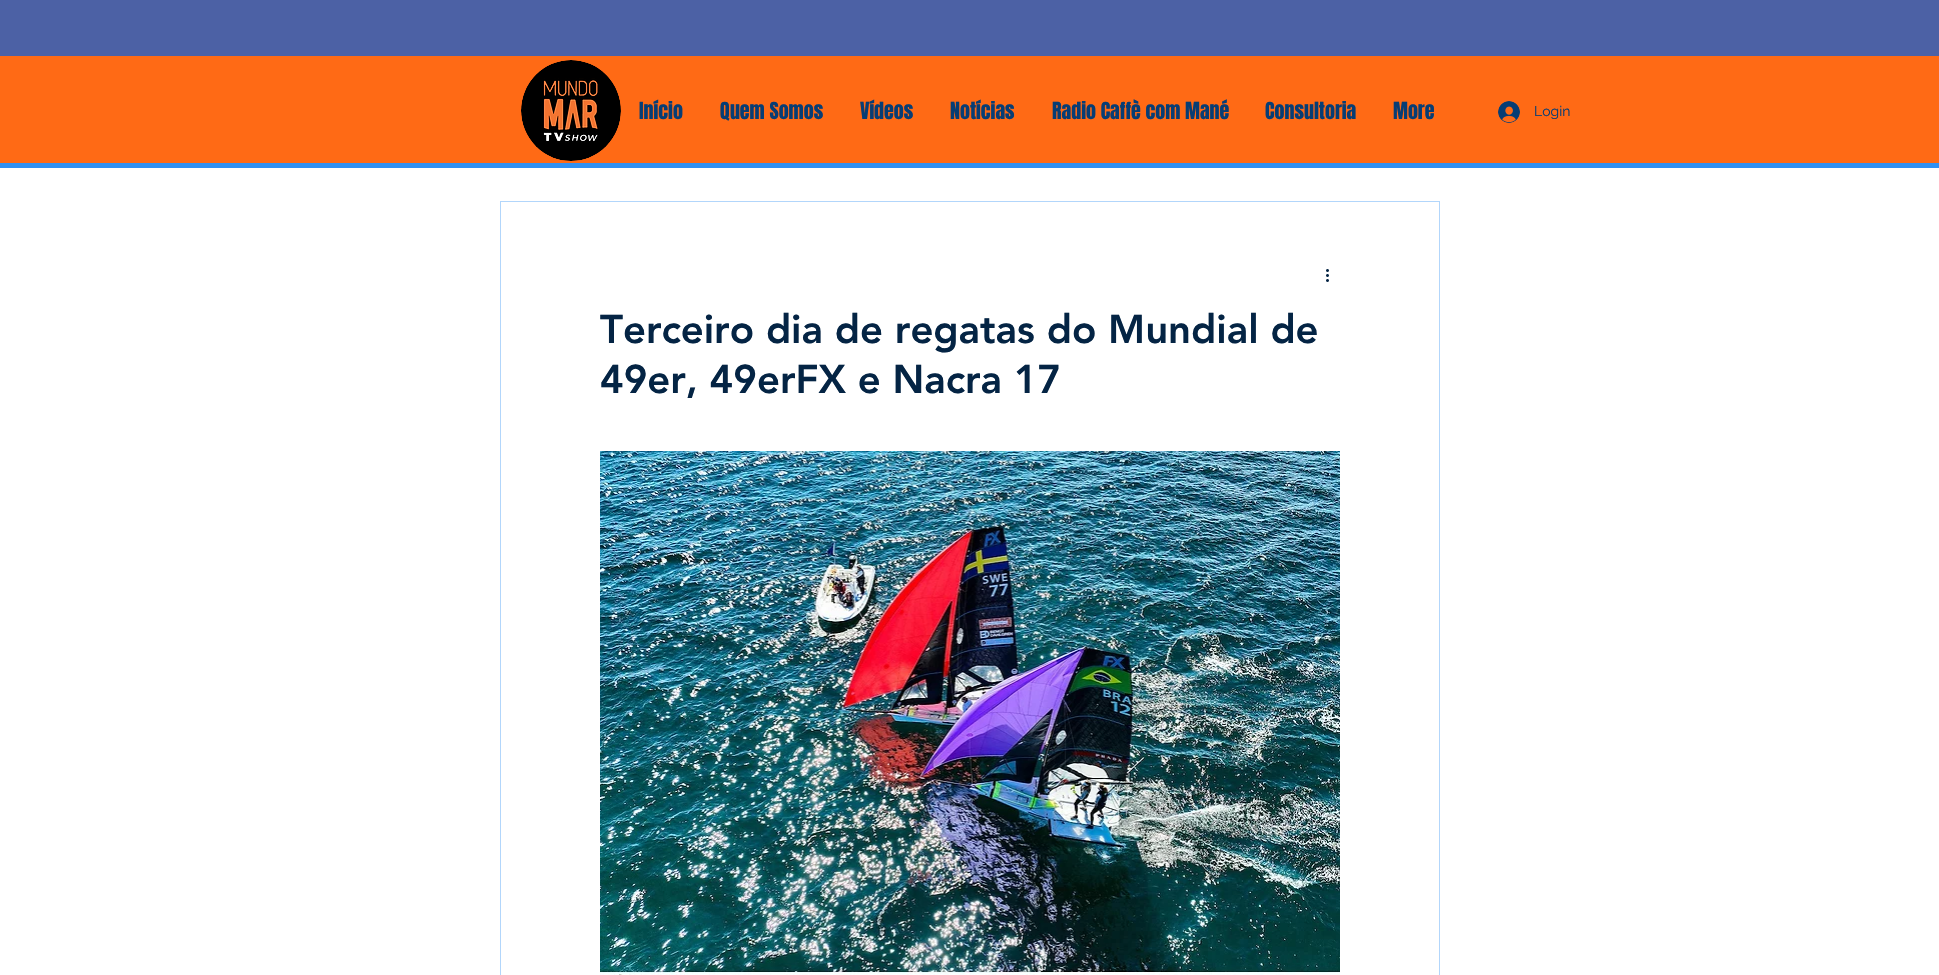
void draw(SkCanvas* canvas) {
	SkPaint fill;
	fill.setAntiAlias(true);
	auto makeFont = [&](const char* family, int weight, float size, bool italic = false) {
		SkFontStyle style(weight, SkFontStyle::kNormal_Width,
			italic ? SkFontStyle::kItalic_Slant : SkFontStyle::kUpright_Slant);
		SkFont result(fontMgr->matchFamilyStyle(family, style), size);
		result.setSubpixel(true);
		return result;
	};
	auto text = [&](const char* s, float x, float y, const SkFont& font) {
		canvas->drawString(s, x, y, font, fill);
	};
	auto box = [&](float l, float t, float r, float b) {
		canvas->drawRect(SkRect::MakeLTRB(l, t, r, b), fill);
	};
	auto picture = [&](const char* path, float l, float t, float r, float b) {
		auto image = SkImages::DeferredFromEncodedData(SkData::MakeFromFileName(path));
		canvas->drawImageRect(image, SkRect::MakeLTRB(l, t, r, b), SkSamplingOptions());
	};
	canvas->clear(0xFFFFFFFF);
	fill.setColor(0xFFFF6A15);
	box(0, 56, 1939, 163);
	fill.setColor(0xFF3091F3);
	box(0, 163, 1939, 168);
	fill.setColor(0xFF4C61A5);
	box(0, 0, 1939, 56);
	picture("image0.png", 521, 60, 621, 161);
	picture("image1.png", 1498, 101, 1520, 123);
	fill.setStyle(SkPaint::kStroke_Style);
	fill.setStrokeWidth(1);
	fill.setColor(0xFFB2D6FB);
	canvas->drawRect(SkRect::MakeLTRB(500.5f, 201.5f, 1439.5f, 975.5f), fill);
	picture("image2.png", 1326, 269, 1329, 282);
	picture("image3.png", 600, 451, 1340, 975);
	auto font1 = makeFont("Anton", 400, 20);
	fill.setStyle(SkPaint::kFill_Style);
	fill.setColor(0xFF073D74);
	text("Início", 639, 119, font1);
	text("Quem Somos", 720, 119, font1);
	text("Vídeos", 860, 119, font1);
	text("Notícias", 950, 119, font1);
	text("Radio Caffè com Mané", 1052, 119, font1);
	text("Consultoria", 1265, 119, font1);
	text("More", 1393, 119, font1);
	auto font2 = makeFont("Raleway", 400, 14);
	text("Login", 1534, 116, font2);
	auto font3 = makeFont("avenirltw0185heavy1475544", 900, 40);
	fill.setColor(0xFF042444);
	text("Terceiro dia de regatas do Mundial de", 600, 343, font3);
	text("49er, 49erFX e Nacra 17", 600, 393, font3);
}
